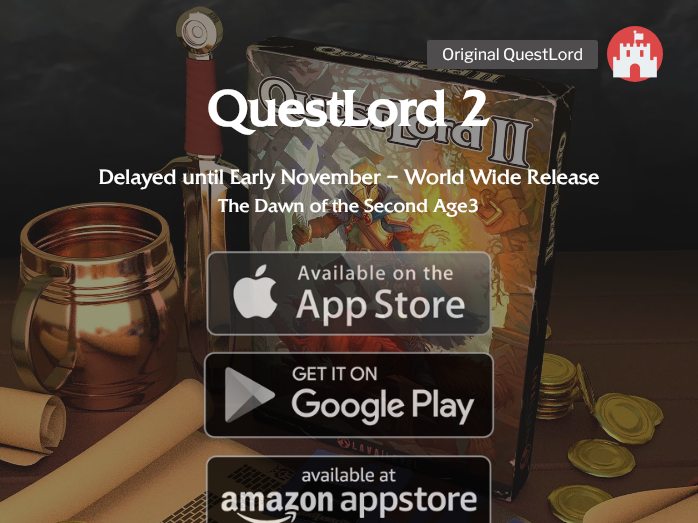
void draw(SkCanvas* canvas) {
	SkPaint fill;
	fill.setAntiAlias(true);
	auto makeFont = [&](const char* family, int weight, float size, bool italic = false) {
		SkFontStyle style(weight, SkFontStyle::kNormal_Width,
			italic ? SkFontStyle::kItalic_Slant : SkFontStyle::kUpright_Slant);
		SkFont result(fontMgr->matchFamilyStyle(family, style), size);
		result.setSubpixel(true);
		return result;
	};
	auto text = [&](const char* s, float x, float y, const SkFont& font) {
		canvas->drawString(s, x, y, font, fill);
	};
	auto roundBox = [&](float l, float t, float r, float b, float radius) {
		canvas->drawRoundRect(SkRect::MakeLTRB(l, t, r, b), radius, radius, fill);
	};
	auto picture = [&](const char* path, float l, float t, float r, float b) {
		auto image = SkImages::DeferredFromEncodedData(SkData::MakeFromFileName(path));
		canvas->drawImageRect(image, SkRect::MakeLTRB(l, t, r, b), SkSamplingOptions());
	};
	canvas->clear(0xFFFFFFFF);
	picture("image1.png", 0, 0, 698, 523);
	fill.setColor(0xFFDC4848);
	canvas->drawCircle(635, 54, 28, fill);
	fill.setColor(0xFF4E4C4C);
	roundBox(427, 40, 598, 69, 3);
	picture("image0.png", 613, 30, 657, 78);
	picture("image2.png", 206, 251, 492, 336);
	picture("image3.png", 203, 351, 495, 439);
	picture("image4.png", 205, 455, 492, 523);
	auto font1 = makeFont("Libre Franklin", 400, 16);
	fill.setColor(0xFFFFFFFF);
	text("Original QuestLord", 442, 60, font1);
	auto font2 = makeFont("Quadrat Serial", 700, 48);
	text("QuestLord 2", 207, 126, font2);
	auto font3 = makeFont("Quadrat Serial", 400, 20);
	text("Delayed until Early November – World Wide Release", 99, 184, font3);
	auto font4 = makeFont("Quadrat Serial", 400, 18);
	text("The Dawn of the Second Age3", 218, 212, font4);
}
